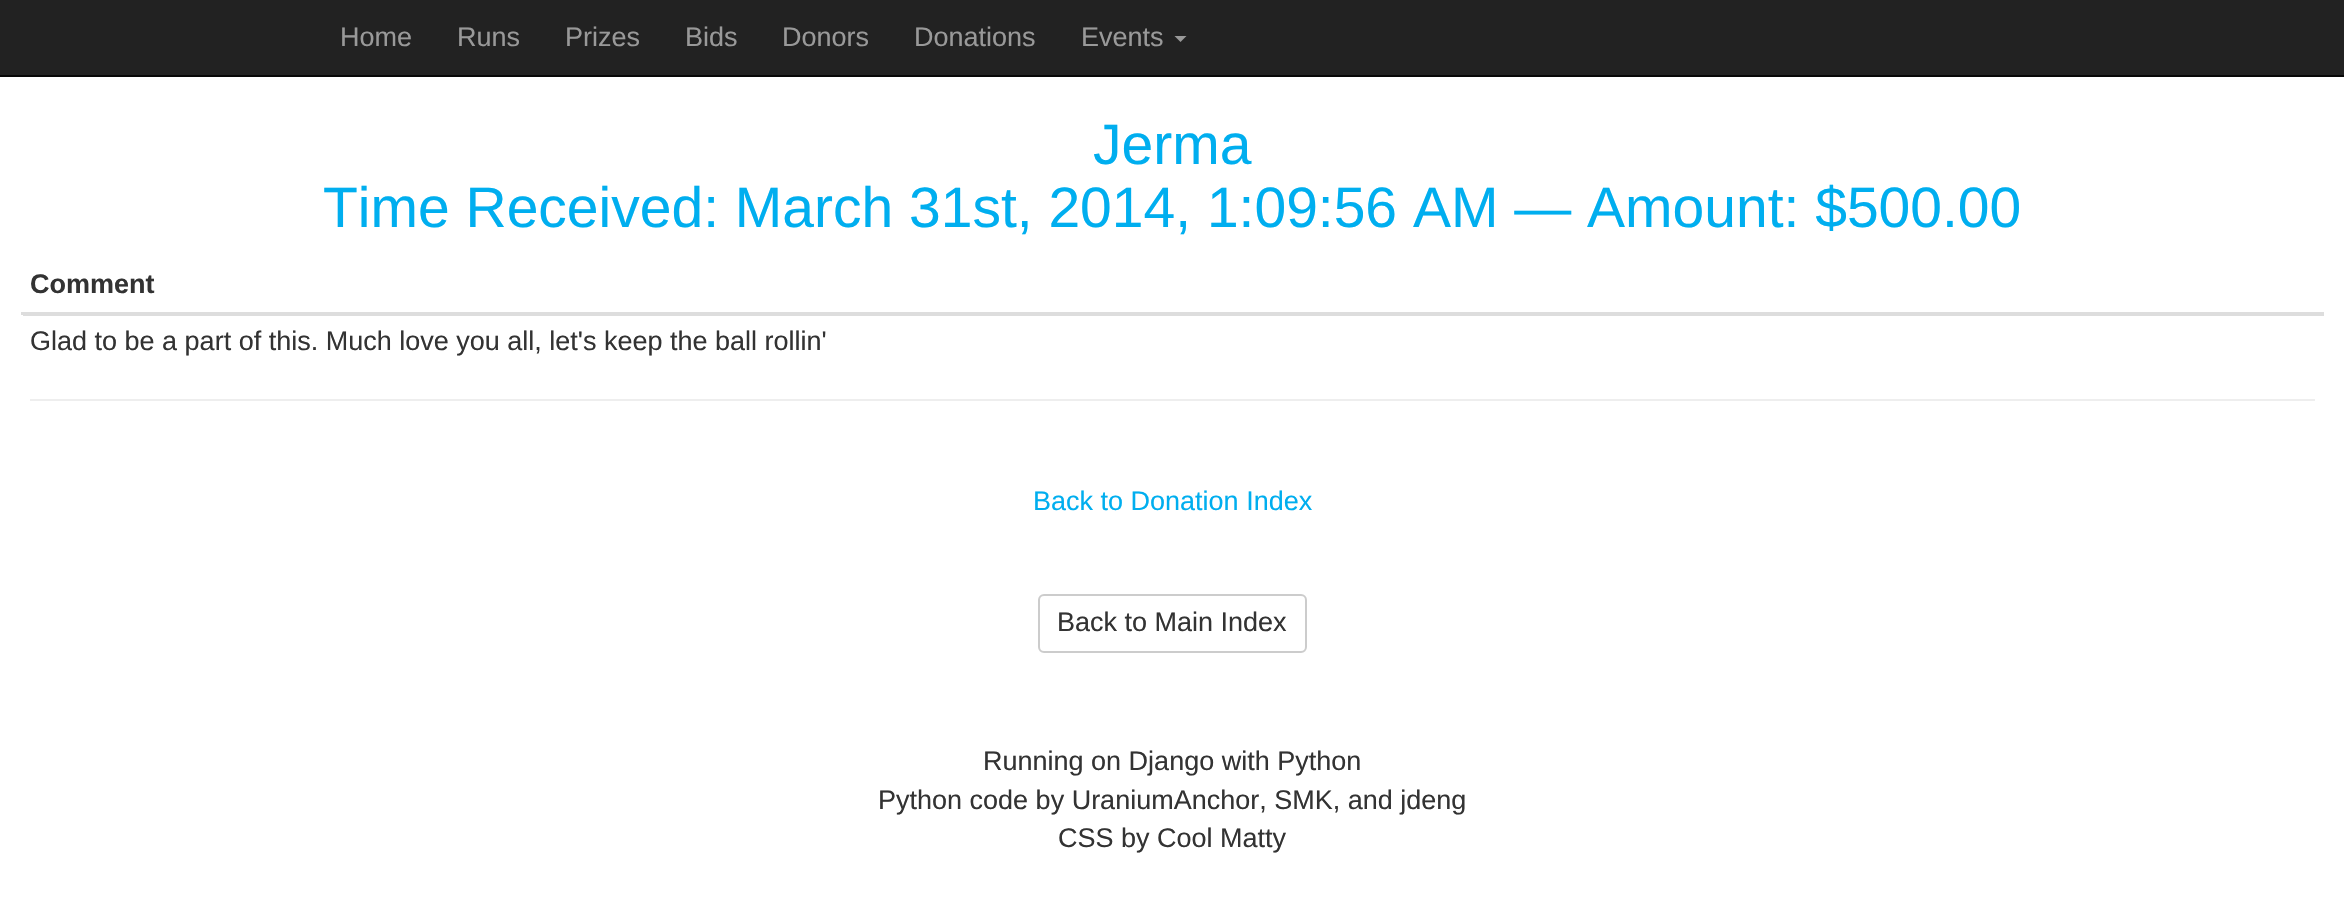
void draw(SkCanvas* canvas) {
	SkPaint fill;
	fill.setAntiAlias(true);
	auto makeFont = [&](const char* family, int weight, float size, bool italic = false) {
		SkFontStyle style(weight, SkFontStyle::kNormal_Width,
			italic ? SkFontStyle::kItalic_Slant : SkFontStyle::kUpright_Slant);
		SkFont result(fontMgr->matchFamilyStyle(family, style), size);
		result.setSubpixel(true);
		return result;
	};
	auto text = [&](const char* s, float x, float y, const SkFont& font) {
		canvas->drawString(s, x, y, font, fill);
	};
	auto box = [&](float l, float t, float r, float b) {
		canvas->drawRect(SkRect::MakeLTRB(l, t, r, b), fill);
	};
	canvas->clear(0xFFFFFFFF);
	fill.setColor(0xFF222222);
	box(0, 0, 2344, 75);
	fill.setColor(0xFF080808);
	box(0, 75, 2344, 77);
	fill.setColor(0xFF999999);
	canvas->drawPath(SkPathBuilder().moveTo(1174.5f, 36).lineTo(1186.5f, 36).lineTo(1180.5f, 42).close().detach(), fill);
	fill.setColor(0xFFDDDDDD);
	box(21, 312, 2324, 315);
	box(23, 315, 2324, 316);
	fill.setColor(0xFFEEEEEE);
	box(30, 399, 2315, 401);
	fill.setStyle(SkPaint::kStroke_Style);
	fill.setStrokeWidth(2);
	fill.setColor(0xFFCCCCCC);
	canvas->drawRoundRect(SkRect::MakeLTRB(1039, 595, 1306, 652), 5, 5, fill);
	auto font1 = makeFont("Liberation Sans", 400, 27);
	fill.setStyle(SkPaint::kFill_Style);
	fill.setColor(0xFF999999);
	text("Home", 340, 46, font1);
	text("Runs", 457, 46, font1);
	text("Prizes", 565, 46, font1);
	text("Bids", 685, 46, font1);
	text("Donors", 782, 46, font1);
	text("Donations", 914, 46, font1);
	text("Events", 1081, 46, font1);
	auto font2 = makeFont("Liberation Sans", 400, 57);
	fill.setColor(0xFF00AEEF);
	text("Jerma", 1093, 164, font2);
	text("Time Received: March 31st, 2014, 1:09:56 AM — Amount: $500.00", 323, 227, font2);
	auto font3 = makeFont("Liberation Sans", 700, 27);
	fill.setColor(0xFF333333);
	text("Comment", 30, 293, font3);
	text("Glad to be a part of this. Much love you all, let's keep the ball rollin'", 30, 350, font1);
	fill.setColor(0xFF00AEEF);
	text("Back to Donation Index", 1033, 510, font1);
	fill.setColor(0xFF333333);
	text("Back to Main Index", 1057, 631, font1);
	text("Running on Django with Python", 983, 770, font1);
	text("Python code by UraniumAnchor, SMK, and jdeng", 878, 809, font1);
	text("CSS by Cool Matty", 1058, 847, font1);
}
